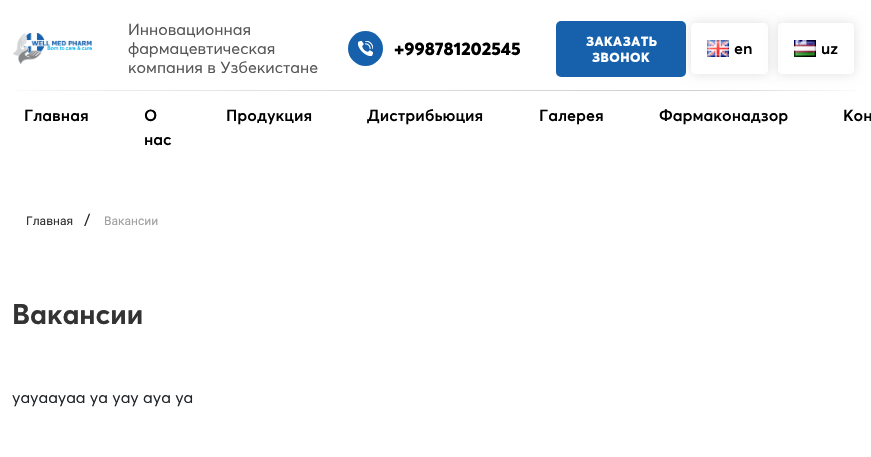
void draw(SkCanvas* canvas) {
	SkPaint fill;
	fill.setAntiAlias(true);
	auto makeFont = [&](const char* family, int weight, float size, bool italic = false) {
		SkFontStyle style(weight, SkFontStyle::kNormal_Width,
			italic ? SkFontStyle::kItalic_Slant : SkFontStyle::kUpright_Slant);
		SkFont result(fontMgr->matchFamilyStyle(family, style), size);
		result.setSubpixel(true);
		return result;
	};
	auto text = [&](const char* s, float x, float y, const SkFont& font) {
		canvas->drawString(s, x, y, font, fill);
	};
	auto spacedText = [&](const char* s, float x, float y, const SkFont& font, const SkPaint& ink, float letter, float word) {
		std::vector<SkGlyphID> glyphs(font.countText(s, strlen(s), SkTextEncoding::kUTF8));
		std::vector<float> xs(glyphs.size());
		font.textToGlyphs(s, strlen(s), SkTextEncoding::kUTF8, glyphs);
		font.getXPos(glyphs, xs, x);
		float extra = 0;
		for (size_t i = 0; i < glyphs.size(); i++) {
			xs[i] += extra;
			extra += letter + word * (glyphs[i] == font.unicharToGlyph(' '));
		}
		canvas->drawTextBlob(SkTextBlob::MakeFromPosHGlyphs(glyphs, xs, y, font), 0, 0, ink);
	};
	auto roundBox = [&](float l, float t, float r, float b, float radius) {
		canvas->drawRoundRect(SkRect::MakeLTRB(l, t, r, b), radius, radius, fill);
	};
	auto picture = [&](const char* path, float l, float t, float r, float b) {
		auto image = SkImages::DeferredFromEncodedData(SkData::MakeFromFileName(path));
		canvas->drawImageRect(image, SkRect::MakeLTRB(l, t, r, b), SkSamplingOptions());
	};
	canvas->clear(0xFFFFFFFF);
	picture("image0.png", 16, 90, 857, 91);
	picture("image1.png", 13, 33, 92, 64);
	fill.setColor(0xFF1761AC);
	canvas->drawCircle(365.5f, 48.5f, 17.5f, fill);
	picture("image2.png", 358, 41, 373, 56);
	roundBox(556, 21, 686, 77, 5);
	canvas->save();
	canvas->clipPath(SkPathBuilder(SkPathFillType::kEvenOdd).moveTo(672, 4).lineTo(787, 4).lineTo(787, 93).lineTo(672, 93).close().moveTo(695, 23).lineTo(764, 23).cubicTo(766, 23, 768, 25, 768, 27).lineTo(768, 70).cubicTo(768, 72, 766, 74, 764, 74).lineTo(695, 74).cubicTo(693, 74, 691, 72, 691, 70).lineTo(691, 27).cubicTo(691, 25, 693, 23, 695, 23).close().detach(), true);
	fill.setColor(0x1F000000);
	fill.setMaskFilter(SkMaskFilter::MakeBlur(kNormal_SkBlurStyle, 6));
	canvas->drawRoundRect(SkRect::MakeLTRB(691, 23, 768, 74), 4, 4, fill);
	fill.setMaskFilter(nullptr);
	canvas->restore();
	picture("image3.png", 707, 40, 729, 57);
	canvas->save();
	canvas->clipPath(SkPathBuilder(SkPathFillType::kEvenOdd).moveTo(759, 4).lineTo(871, 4).lineTo(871, 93).lineTo(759, 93).close().moveTo(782, 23).lineTo(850, 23).cubicTo(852, 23, 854, 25, 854, 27).lineTo(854, 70).cubicTo(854, 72, 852, 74, 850, 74).lineTo(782, 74).cubicTo(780, 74, 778, 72, 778, 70).lineTo(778, 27).cubicTo(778, 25, 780, 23, 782, 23).close().detach(), true);
	fill.setMaskFilter(SkMaskFilter::MakeBlur(kNormal_SkBlurStyle, 6));
	canvas->drawRoundRect(SkRect::MakeLTRB(778, 23, 854, 74), 4, 4, fill);
	fill.setMaskFilter(nullptr);
	canvas->restore();
	picture("image4.png", 794, 40, 816, 57);
	auto font1 = makeFont("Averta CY", 400, 16);
	fill.setColor(0xFF565656);
	text("Инновационная", 128, 35, font1);
	text("фармацевтическая", 128, 54, font1);
	text("компания в Узбекистане", 128, 73, font1);
	auto font2 = makeFont("Averta CY", 800, 18);
	fill.setColor(0xFF000000);
	text("+998781202545", 394, 55, font2);
	auto font3 = makeFont("Averta CY", 800, 13);
	fill.setColor(0xFFFFFFFF);
	spacedText("ЗАКАЗАТЬ", 586, 46, font3, fill, 0.5f, 0);
	spacedText("ЗВОНОК", 592, 62, font3, fill, 0.5f, 0);
	auto font4 = makeFont("Averta CY", 600, 16);
	fill.setColor(0xFF000000);
	text("en", 734, 54, font4);
	text("uz", 821, 54, font4);
	text("Главная", 24, 121, font4);
	text("О", 144, 121, font4);
	text("нас", 144, 145, font4);
	text("Продукция", 226, 121, font4);
	text("Дистрибьюция", 367, 121, font4);
	text("Галерея", 539, 121, font4);
	text("Фармаконадзор", 659, 121, font4);
	text("Кон", 843, 121, font4);
	auto font5 = makeFont("Roboto", 400, 12);
	fill.setColor(0xFF333333);
	text("Главная", 26, 225, font5);
	auto font6 = makeFont("Roboto", 400, 16);
	fill.setColor(0xFF212529);
	text("/", 84, 225, font6);
	fill.setColor(0xFFA1A1A1);
	text("Вакансии", 104, 225, font5);
	auto font7 = makeFont("Averta CY", 700, 28);
	fill.setColor(0xFF333333);
	text("Вакансии", 12, 324, font7);
	fill.setColor(0xFF212529);
	text("уауаауаа уа уау ауа уа", 12, 403, font1);
}
